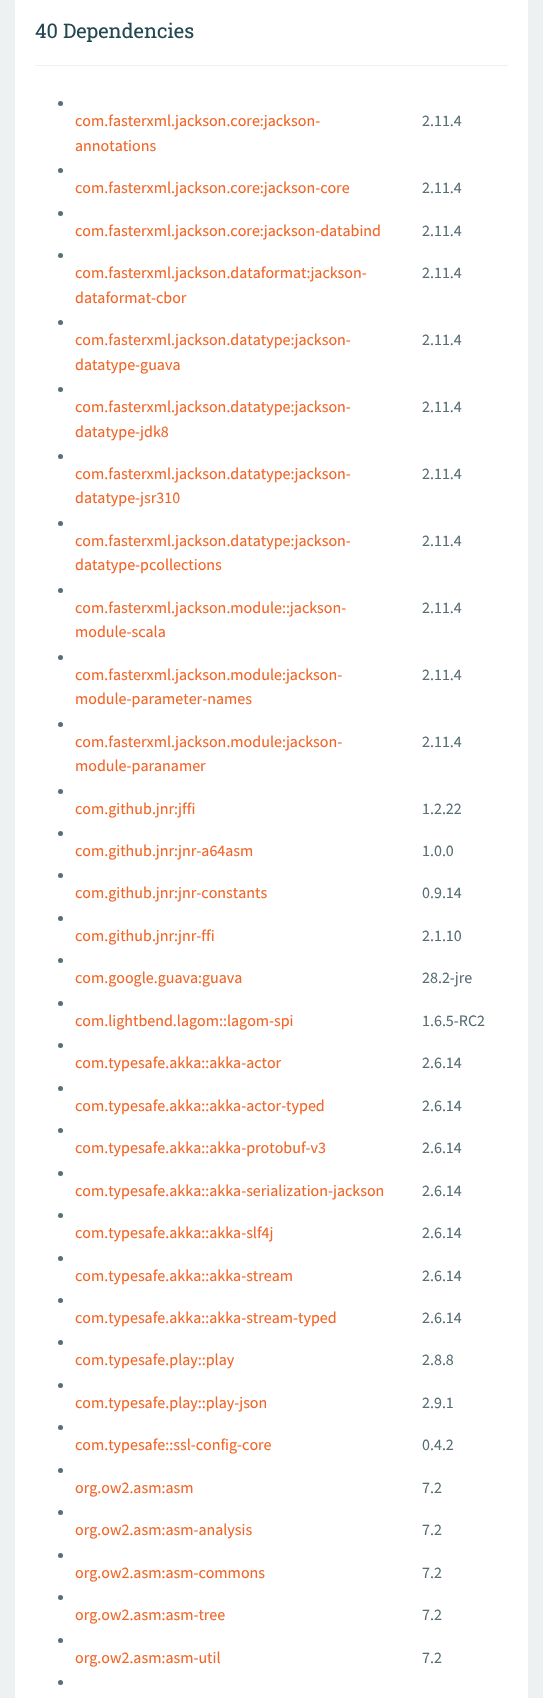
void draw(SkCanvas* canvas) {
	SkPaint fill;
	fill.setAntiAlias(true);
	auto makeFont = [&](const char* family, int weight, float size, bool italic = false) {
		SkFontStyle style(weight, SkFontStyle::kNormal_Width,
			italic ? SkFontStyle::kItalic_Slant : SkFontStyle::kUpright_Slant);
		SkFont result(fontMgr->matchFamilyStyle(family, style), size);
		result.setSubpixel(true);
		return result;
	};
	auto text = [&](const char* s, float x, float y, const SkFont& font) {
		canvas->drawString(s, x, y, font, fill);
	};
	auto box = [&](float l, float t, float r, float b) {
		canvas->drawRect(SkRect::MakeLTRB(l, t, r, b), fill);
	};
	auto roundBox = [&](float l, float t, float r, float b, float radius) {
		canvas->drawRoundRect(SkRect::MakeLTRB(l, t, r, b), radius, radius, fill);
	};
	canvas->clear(0xFFEDF1F1);
	fill.setColor(0xFFFFFFFF);
	roundBox(15, -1, 528, 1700, 2);
	fill.setColor(0xFFEDF1F1);
	box(35, 65, 508, 66);
	fill.setColor(0xFF586E75);
	canvas->drawCircle(60.5f, 103.5f, 2.5f, fill);
	canvas->drawCircle(60.5f, 170.5f, 2.5f, fill);
	canvas->drawCircle(60.5f, 213.5f, 2.5f, fill);
	canvas->drawCircle(60.5f, 255.5f, 2.5f, fill);
	canvas->drawCircle(60.5f, 322.5f, 2.5f, fill);
	canvas->drawCircle(60.5f, 389.5f, 2.5f, fill);
	canvas->drawCircle(60.5f, 456.5f, 2.5f, fill);
	canvas->drawCircle(60.5f, 523.5f, 2.5f, fill);
	canvas->drawCircle(60.5f, 590.5f, 2.5f, fill);
	canvas->drawCircle(60.5f, 657.5f, 2.5f, fill);
	canvas->drawCircle(60.5f, 724.5f, 2.5f, fill);
	canvas->drawCircle(60.5f, 791.5f, 2.5f, fill);
	canvas->drawCircle(60.5f, 833.5f, 2.5f, fill);
	canvas->drawCircle(60.5f, 875.5f, 2.5f, fill);
	canvas->drawCircle(60.5f, 918.5f, 2.5f, fill);
	canvas->drawCircle(60.5f, 960.5f, 2.5f, fill);
	canvas->drawCircle(60.5f, 1003.5f, 2.5f, fill);
	canvas->drawCircle(60.5f, 1045.5f, 2.5f, fill);
	canvas->drawCircle(60.5f, 1088.5f, 2.5f, fill);
	canvas->drawCircle(60.5f, 1130.5f, 2.5f, fill);
	canvas->drawCircle(60.5f, 1173.5f, 2.5f, fill);
	canvas->drawCircle(60.5f, 1215.5f, 2.5f, fill);
	canvas->drawCircle(60.5f, 1258.5f, 2.5f, fill);
	canvas->drawCircle(60.5f, 1300.5f, 2.5f, fill);
	canvas->drawCircle(60.5f, 1342.5f, 2.5f, fill);
	canvas->drawCircle(60.5f, 1385.5f, 2.5f, fill);
	canvas->drawCircle(60.5f, 1427.5f, 2.5f, fill);
	canvas->drawCircle(60.5f, 1470.5f, 2.5f, fill);
	canvas->drawCircle(60.5f, 1512.5f, 2.5f, fill);
	canvas->drawCircle(60.5f, 1555.5f, 2.5f, fill);
	canvas->drawCircle(60.5f, 1597.5f, 2.5f, fill);
	canvas->drawCircle(60.5f, 1640.5f, 2.5f, fill);
	canvas->drawCircle(60.5f, 1682.5f, 2.5f, fill);
	auto font1 = makeFont("Roboto Slab", 400, 20);
	fill.setColor(0xFF224951);
	text("40 Dependencies", 35, 38, font1);
	auto font2 = makeFont("Source Sans Pro", 400, 16);
	fill.setColor(0xFFF26527);
	text("com.fasterxml.jackson.core:jackson-", 75, 126, font2);
	text("annotations", 75, 151, font2);
	fill.setColor(0xFF586E75);
	text("2.11.4", 422, 126, font2);
	fill.setColor(0xFFF26527);
	text("com.fasterxml.jackson.core:jackson-core", 75, 193, font2);
	fill.setColor(0xFF586E75);
	text("2.11.4", 422, 193, font2);
	fill.setColor(0xFFF26527);
	text("com.fasterxml.jackson.core:jackson-databind", 75, 236, font2);
	fill.setColor(0xFF586E75);
	text("2.11.4", 422, 236, font2);
	fill.setColor(0xFFF26527);
	text("com.fasterxml.jackson.dataformat:jackson-", 75, 278, font2);
	text("dataformat-cbor", 75, 303, font2);
	fill.setColor(0xFF586E75);
	text("2.11.4", 422, 278, font2);
	fill.setColor(0xFFF26527);
	text("com.fasterxml.jackson.datatype:jackson-", 75, 345, font2);
	text("datatype-guava", 75, 370, font2);
	fill.setColor(0xFF586E75);
	text("2.11.4", 422, 345, font2);
	fill.setColor(0xFFF26527);
	text("com.fasterxml.jackson.datatype:jackson-", 75, 412, font2);
	text("datatype-jdk8", 75, 437, font2);
	fill.setColor(0xFF586E75);
	text("2.11.4", 422, 412, font2);
	fill.setColor(0xFFF26527);
	text("com.fasterxml.jackson.datatype:jackson-", 75, 479, font2);
	text("datatype-jsr310", 75, 503, font2);
	fill.setColor(0xFF586E75);
	text("2.11.4", 422, 479, font2);
	fill.setColor(0xFFF26527);
	text("com.fasterxml.jackson.datatype:jackson-", 75, 546, font2);
	text("datatype-pcollections", 75, 570, font2);
	fill.setColor(0xFF586E75);
	text("2.11.4", 422, 546, font2);
	fill.setColor(0xFFF26527);
	text("com.fasterxml.jackson.module::jackson-", 75, 613, font2);
	text("module-scala", 75, 637, font2);
	fill.setColor(0xFF586E75);
	text("2.11.4", 422, 613, font2);
	fill.setColor(0xFFF26527);
	text("com.fasterxml.jackson.module:jackson-", 75, 680, font2);
	text("module-parameter-names", 75, 704, font2);
	fill.setColor(0xFF586E75);
	text("2.11.4", 422, 680, font2);
	fill.setColor(0xFFF26527);
	text("com.fasterxml.jackson.module:jackson-", 75, 747, font2);
	text("module-paranamer", 75, 771, font2);
	fill.setColor(0xFF586E75);
	text("2.11.4", 422, 747, font2);
	fill.setColor(0xFFF26527);
	text("com.github.jnr:jffi", 75, 814, font2);
	fill.setColor(0xFF586E75);
	text("1.2.22", 422, 814, font2);
	fill.setColor(0xFFF26527);
	text("com.github.jnr:jnr-a64asm", 75, 856, font2);
	fill.setColor(0xFF586E75);
	text("1.0.0", 422, 856, font2);
	fill.setColor(0xFFF26527);
	text("com.github.jnr:jnr-constants", 75, 898, font2);
	fill.setColor(0xFF586E75);
	text("0.9.14", 422, 898, font2);
	fill.setColor(0xFFF26527);
	text("com.github.jnr:jnr-ffi", 75, 941, font2);
	fill.setColor(0xFF586E75);
	text("2.1.10", 422, 941, font2);
	fill.setColor(0xFFF26527);
	text("com.google.guava:guava", 75, 983, font2);
	fill.setColor(0xFF586E75);
	text("28.2-jre", 422, 983, font2);
	fill.setColor(0xFFF26527);
	text("com.lightbend.lagom::lagom-spi", 75, 1026, font2);
	fill.setColor(0xFF586E75);
	text("1.6.5-RC2", 422, 1026, font2);
	fill.setColor(0xFFF26527);
	text("com.typesafe.akka::akka-actor", 75, 1068, font2);
	fill.setColor(0xFF586E75);
	text("2.6.14", 422, 1068, font2);
	fill.setColor(0xFFF26527);
	text("com.typesafe.akka::akka-actor-typed", 75, 1111, font2);
	fill.setColor(0xFF586E75);
	text("2.6.14", 422, 1111, font2);
	fill.setColor(0xFFF26527);
	text("com.typesafe.akka::akka-protobuf-v3", 75, 1153, font2);
	fill.setColor(0xFF586E75);
	text("2.6.14", 422, 1153, font2);
	fill.setColor(0xFFF26527);
	text("com.typesafe.akka::akka-serialization-jackson", 75, 1196, font2);
	fill.setColor(0xFF586E75);
	text("2.6.14", 422, 1196, font2);
	fill.setColor(0xFFF26527);
	text("com.typesafe.akka::akka-slf4j", 75, 1238, font2);
	fill.setColor(0xFF586E75);
	text("2.6.14", 422, 1238, font2);
	fill.setColor(0xFFF26527);
	text("com.typesafe.akka::akka-stream", 75, 1281, font2);
	fill.setColor(0xFF586E75);
	text("2.6.14", 422, 1281, font2);
	fill.setColor(0xFFF26527);
	text("com.typesafe.akka::akka-stream-typed", 75, 1323, font2);
	fill.setColor(0xFF586E75);
	text("2.6.14", 422, 1323, font2);
	fill.setColor(0xFFF26527);
	text("com.typesafe.play::play", 75, 1365, font2);
	fill.setColor(0xFF586E75);
	text("2.8.8", 422, 1365, font2);
	fill.setColor(0xFFF26527);
	text("com.typesafe.play::play-json", 75, 1408, font2);
	fill.setColor(0xFF586E75);
	text("2.9.1", 422, 1408, font2);
	fill.setColor(0xFFF26527);
	text("com.typesafe::ssl-config-core", 75, 1450, font2);
	fill.setColor(0xFF586E75);
	text("0.4.2", 422, 1450, font2);
	fill.setColor(0xFFF26527);
	text("org.ow2.asm:asm", 75, 1493, font2);
	fill.setColor(0xFF586E75);
	text("7.2", 422, 1493, font2);
	fill.setColor(0xFFF26527);
	text("org.ow2.asm:asm-analysis", 75, 1535, font2);
	fill.setColor(0xFF586E75);
	text("7.2", 422, 1535, font2);
	fill.setColor(0xFFF26527);
	text("org.ow2.asm:asm-commons", 75, 1578, font2);
	fill.setColor(0xFF586E75);
	text("7.2", 422, 1578, font2);
	fill.setColor(0xFFF26527);
	text("org.ow2.asm:asm-tree", 75, 1620, font2);
	fill.setColor(0xFF586E75);
	text("7.2", 422, 1620, font2);
	fill.setColor(0xFFF26527);
	text("org.ow2.asm:asm-util", 75, 1663, font2);
	fill.setColor(0xFF586E75);
	text("7.2", 422, 1663, font2);
}
